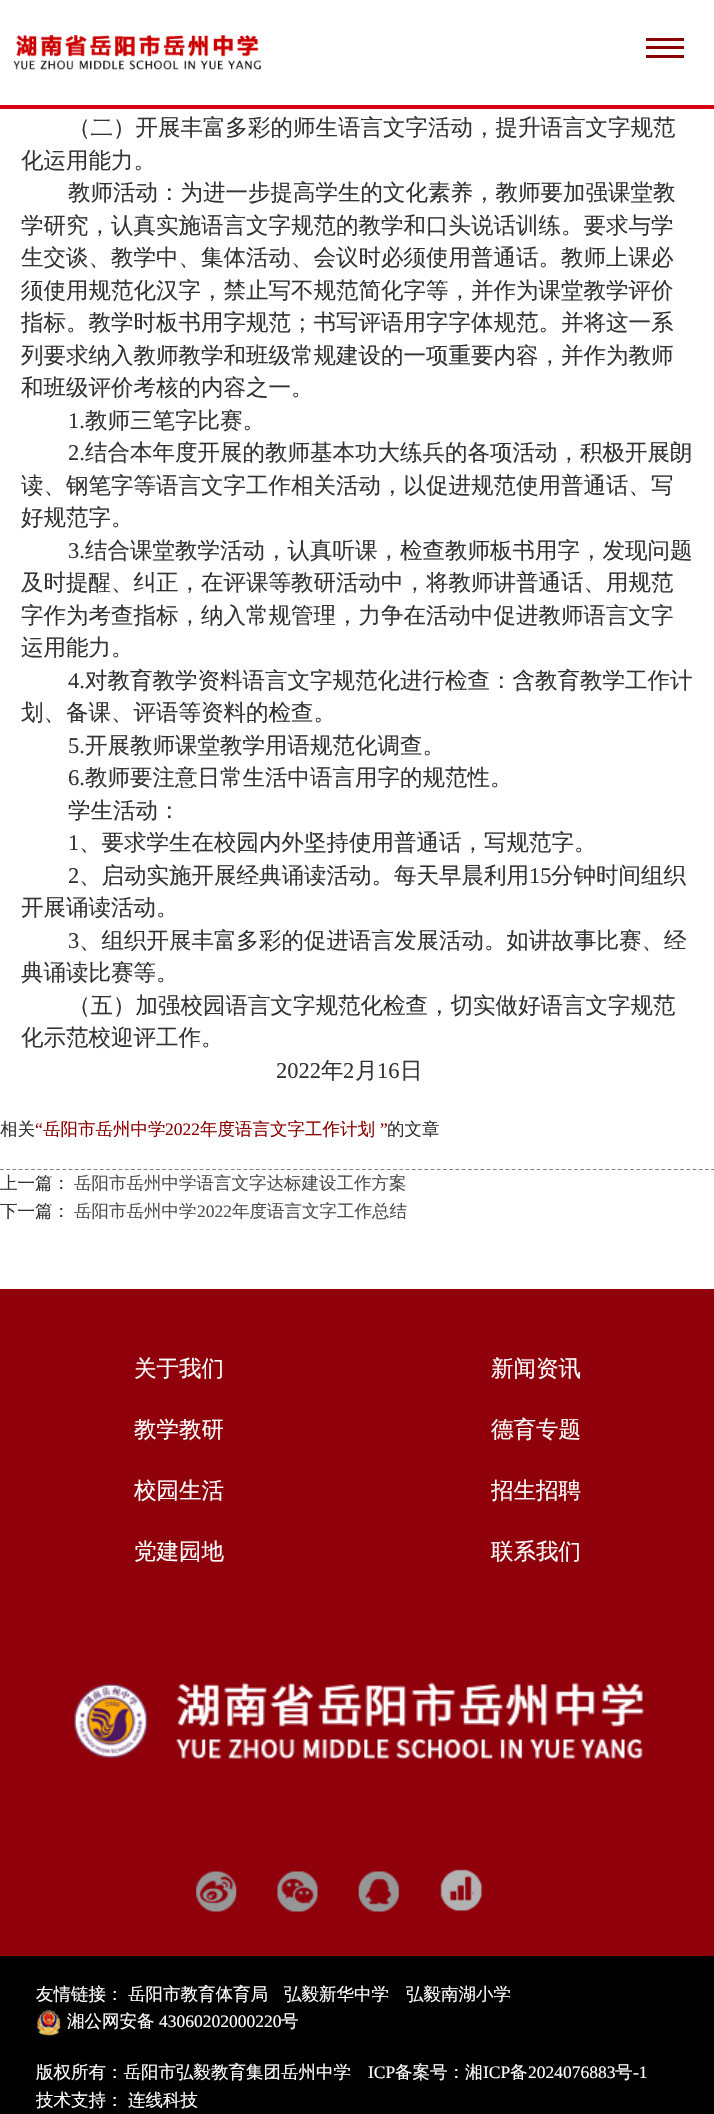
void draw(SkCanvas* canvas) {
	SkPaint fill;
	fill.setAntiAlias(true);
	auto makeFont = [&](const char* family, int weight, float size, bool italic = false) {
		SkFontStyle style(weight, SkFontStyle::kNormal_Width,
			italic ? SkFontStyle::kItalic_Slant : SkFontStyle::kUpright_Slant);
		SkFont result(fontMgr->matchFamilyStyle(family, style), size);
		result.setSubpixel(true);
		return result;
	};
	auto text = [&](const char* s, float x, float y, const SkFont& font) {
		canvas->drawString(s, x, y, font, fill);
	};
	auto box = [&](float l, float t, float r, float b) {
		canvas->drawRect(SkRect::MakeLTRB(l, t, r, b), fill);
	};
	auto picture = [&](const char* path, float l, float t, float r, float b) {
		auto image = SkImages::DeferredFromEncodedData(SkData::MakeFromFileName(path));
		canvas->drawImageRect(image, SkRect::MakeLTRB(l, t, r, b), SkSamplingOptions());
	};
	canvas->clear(0xFFFFFFFF);
	fill.setColor(0xFFDA0010);
	box(0, 105, 714, 109);
	picture("image0.png", 13, 35, 261, 70);
	fill.setColor(0xFF8B0000);
	box(646, 46, 684, 49);
	box(646, 38, 684, 41);
	box(646, 55, 684, 58);
	fill.setStyle(SkPaint::kStroke_Style);
	fill.setStrokeWidth(1.2f);
	fill.setColor(0xFF808080);
	fill.setPathEffect(SkDashPathEffect::Make({{3.75f, 2.49f}}, 0));
	canvas->drawPath(SkPathBuilder().moveTo(0, 1169.5f).lineTo(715, 1169.5f).detach(), fill);
	fill.setPathEffect(nullptr);
	fill.setStyle(SkPaint::kFill_Style);
	fill.setColor(0xFF8F000B);
	box(0, 1289, 714, 1956);
	picture("image1.png", 74, 1682, 644, 1759);
	picture("image2.png", 196, 1871, 237, 1912);
	picture("image3.png", 277, 1871, 318, 1912);
	picture("image4.png", 358, 1871, 399, 1912);
	picture("image5.png", 440, 1869, 483, 1912);
	fill.setColor(0xFF000000);
	box(0, 1956, 714, 2114);
	picture("image6.png", 37, 2010, 61, 2036);
	auto font1 = makeFont("WenQuanYi Zen Hei", 500, 22.5f);
	fill.setColor(0xFF333333);
	text("（二）开展丰富多彩的师生语言文字活动，提升语言文字规范", 68, 135, font1);
	text("化运用能力。", 21, 168, font1);
	text("教师活动：为进一步提高学生的文化素养，教师要加强课堂教", 68, 200, font1);
	text("学研究，认真实施语言文字规范的教学和口头说话训练。要求与学", 21, 233, font1);
	text("生交谈、教学中、集体活动、会议时必须使用普通话。教师上课必", 21, 265, font1);
	text("须使用规范化汉字，禁止写不规范简化字等，并作为课堂教学评价", 21, 298, font1);
	text("指标。教学时板书用字规范；书写评语用字字体规范。并将这一系", 21, 330, font1);
	text("列要求纳入教师教学和班级常规建设的一项重要内容，并作为教师", 21, 363, font1);
	text("和班级评价考核的内容之一。", 21, 395, font1);
	auto font2 = makeFont("Liberation Serif", 400, 22.5f);
	text("1.", 68, 428, font2);
	text("教师三笔字比赛。", 85, 428, font1);
	text("2.", 68, 460, font2);
	text("结合本年度开展的教师基本功大练兵的各项活动，积极开展朗", 85, 460, font1);
	text("读、钢笔字等语言文字工作相关活动，以促进规范使用普通话、写", 21, 493, font1);
	text("好规范字。", 21, 525, font1);
	text("3.", 68, 558, font2);
	text("结合课堂教学活动，认真听课，检查教师板书用字，发现问题", 85, 558, font1);
	text("及时提醒、纠正，在评课等教研活动中，将教师讲普通话、用规范", 21, 590, font1);
	text("字作为考查指标，纳入常规管理，力争在活动中促进教师语言文字", 21, 623, font1);
	text("运用能力。", 21, 655, font1);
	text("4.", 68, 688, font2);
	text("对教育教学资料语言文字规范化进行检查：含教育教学工作计", 85, 688, font1);
	text("划、备课、评语等资料的检查。", 21, 720, font1);
	text("5.", 68, 753, font2);
	text("开展教师课堂教学用语规范化调查。", 85, 753, font1);
	text("6.", 68, 785, font2);
	text("教师要注意日常生活中语言用字的规范性。", 85, 785, font1);
	text("学生活动：", 68, 818, font1);
	text("1", 68, 850, font2);
	text("、要求学生在校园内外坚持使用普通话，写规范字。", 79, 850, font1);
	text("2", 68, 883, font2);
	text("、启动实施开展经典诵读活动。每天早晨利用", 79, 883, font1);
	text("15", 529, 883, font2);
	text("分钟时间组织", 551, 883, font1);
	text("开展诵读活动。", 21, 915, font1);
	text("3", 68, 948, font2);
	text("、组织开展丰富多彩的促进语言发展活动。如讲故事比赛、经", 79, 948, font1);
	text("典诵读比赛等。", 21, 980, font1);
	text("（五）加强校园语言文字规范化检查，切实做好语言文字规范", 68, 1013, font1);
	text("化示范校迎评工作。", 21, 1045, font1);
	text("2022", 276, 1078, font2);
	text("年", 321, 1078, font1);
	text("2", 343, 1078, font2);
	text("月", 355, 1078, font1);
	text("16", 377, 1078, font2);
	text("日", 400, 1078, font1);
	auto font3 = makeFont("WenQuanYi Zen Hei", 500, 17.5f);
	text("相关", 0, 1135, font3);
	auto font4 = makeFont("Liberation Serif", 400, 17.5f);
	fill.setColor(0xFF8B0000);
	text("“", 35, 1135, font4);
	text("岳阳市岳州中学", 43, 1135, font3);
	text("2022", 165, 1135, font4);
	text("年度语言文字工作计划", 200, 1135, font3);
	text("”", 380, 1135, font4);
	fill.setColor(0xFF333333);
	text("的文章", 387, 1135, font3);
	text("上一篇：", 0, 1189, font3);
	fill.setColor(0xFF4C4C4C);
	text("岳阳市岳州中学语言文字达标建设工作方案", 74, 1189, font3);
	fill.setColor(0xFF333333);
	text("下一篇：", 0, 1217, font3);
	fill.setColor(0xFF4C4C4C);
	text("岳阳市岳州中学", 74, 1217, font3);
	text("2022", 197, 1217, font4);
	text("年度语言文字工作总结", 232, 1217, font3);
	fill.setColor(0xFFFFFFFF);
	text("关于我们", 134, 1376, font1);
	text("新闻资讯", 491, 1376, font1);
	text("教学教研", 134, 1437, font1);
	text("德育专题", 491, 1437, font1);
	text("校园生活", 134, 1498, font1);
	text("招生招聘", 491, 1498, font1);
	text("党建园地", 134, 1559, font1);
	text("联系我们", 491, 1559, font1);
	text("友情链接：", 36, 2000, font3);
	text("岳阳市教育体育局", 128, 2000, font3);
	text("弘毅新华中学", 284, 2000, font3);
	text("弘毅南湖小学", 406, 2000, font3);
	text("湘公网安备", 67, 2027, font3);
	text("43060202000220", 159, 2027, font4);
	text("号", 281, 2027, font3);
	text("版权所有：岳阳市弘毅教育集团岳州中学", 36, 2078, font3);
	text("ICP", 368, 2078, font4);
	text("备案号：湘", 395, 2078, font3);
	text("ICP", 483, 2078, font4);
	text("备", 510, 2078, font3);
	text("2024076883", 528, 2078, font4);
	text("号", 615, 2078, font3);
	text("-1", 633, 2078, font4);
	text("技术支持：", 36, 2106, font3);
	text("连线科技", 128, 2106, font3);
}
